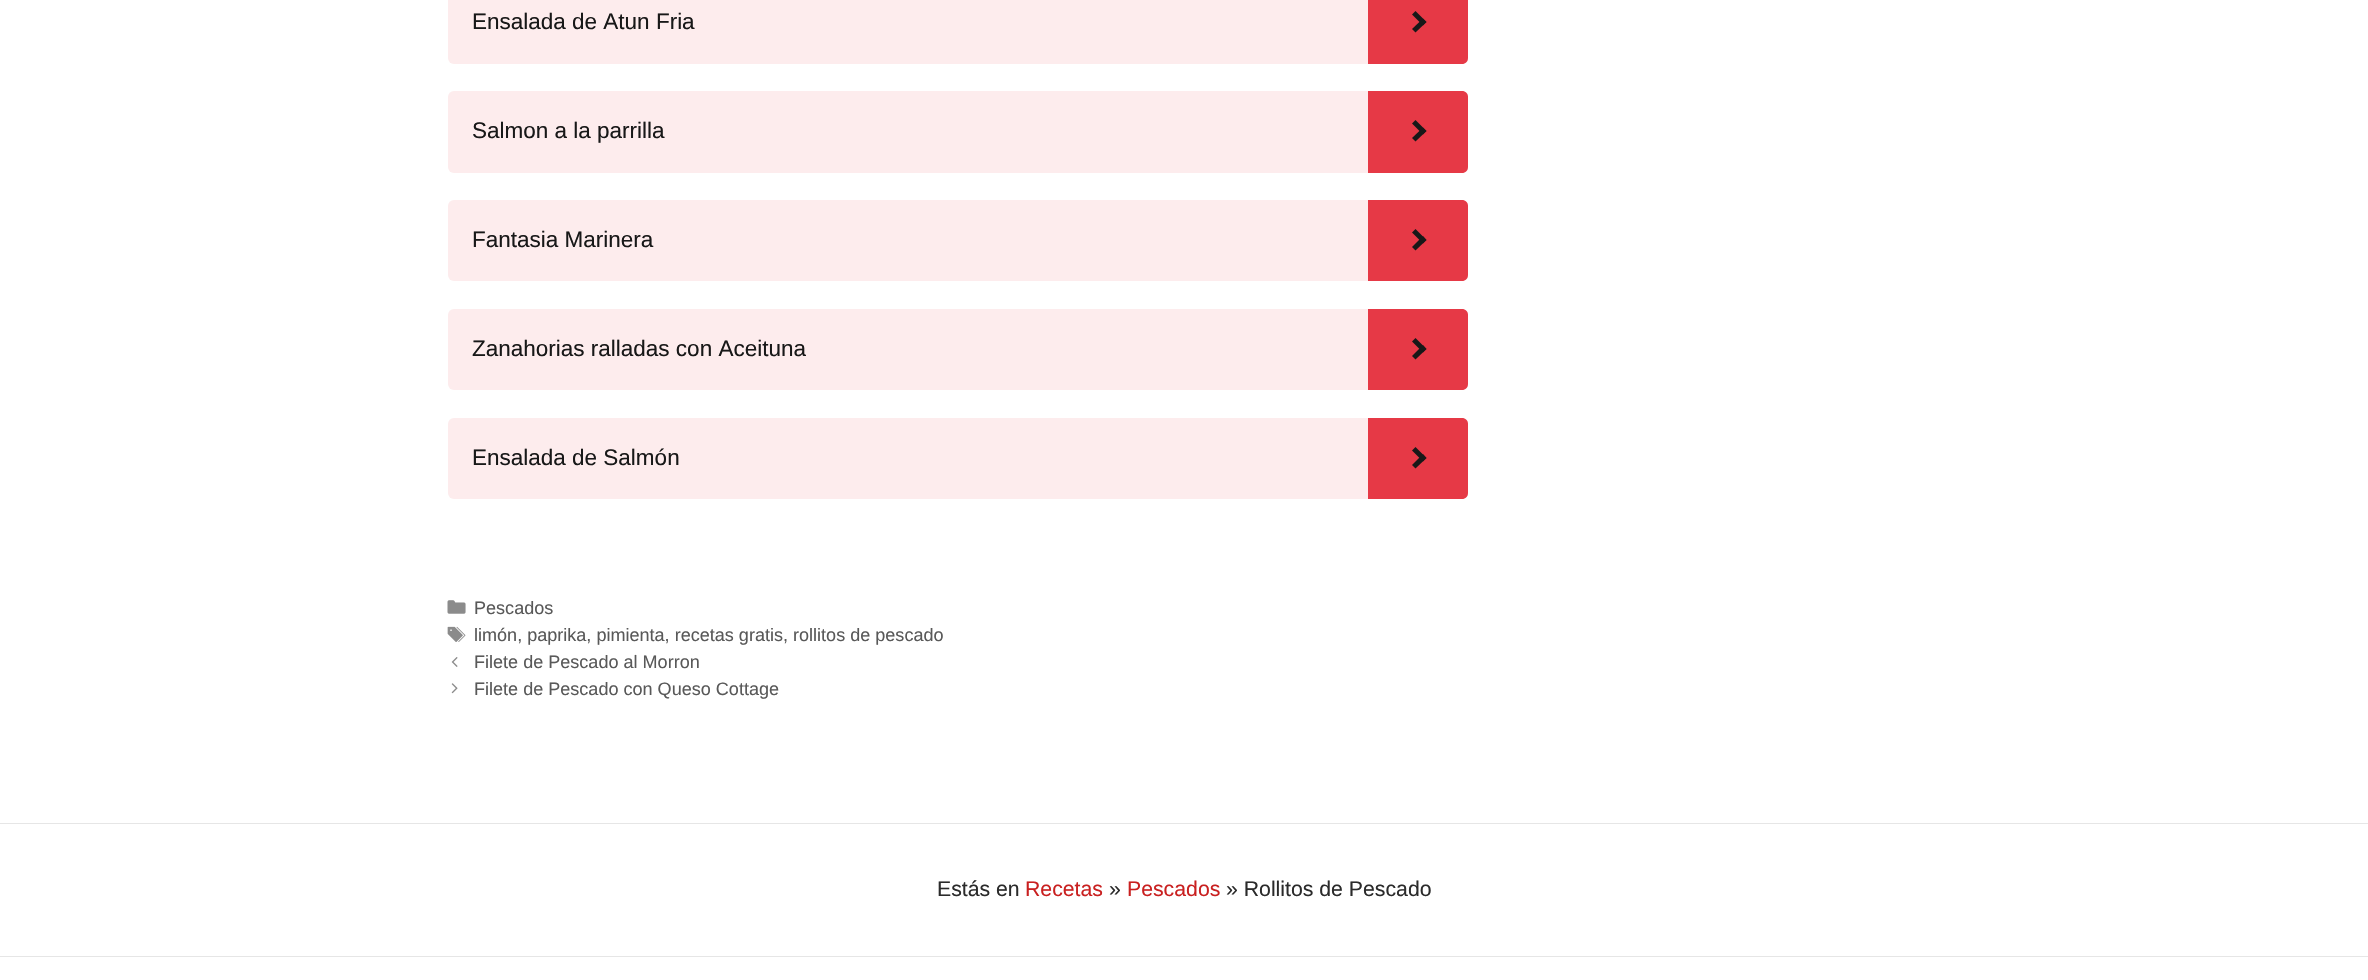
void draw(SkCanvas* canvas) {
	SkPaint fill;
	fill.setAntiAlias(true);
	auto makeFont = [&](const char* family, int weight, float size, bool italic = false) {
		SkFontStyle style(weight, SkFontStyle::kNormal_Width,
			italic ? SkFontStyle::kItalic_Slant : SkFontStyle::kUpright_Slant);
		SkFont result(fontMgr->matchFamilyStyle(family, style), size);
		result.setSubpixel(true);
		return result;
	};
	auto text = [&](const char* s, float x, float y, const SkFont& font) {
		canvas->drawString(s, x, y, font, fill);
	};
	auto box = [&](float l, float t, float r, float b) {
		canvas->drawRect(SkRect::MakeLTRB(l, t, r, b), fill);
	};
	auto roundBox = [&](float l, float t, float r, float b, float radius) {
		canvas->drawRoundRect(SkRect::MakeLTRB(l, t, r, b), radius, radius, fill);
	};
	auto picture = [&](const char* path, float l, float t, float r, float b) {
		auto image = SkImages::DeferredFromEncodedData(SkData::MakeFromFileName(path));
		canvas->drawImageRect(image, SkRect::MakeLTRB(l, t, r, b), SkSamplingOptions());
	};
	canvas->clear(0xFFFFFFFF);
	fill.setColor(0xFFFDECED);
	roundBox(448, -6, 1468, 64, 6);
	fill.setColor(0xFFE63946);
	canvas->drawPath(SkPathBuilder().moveTo(1368, -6).lineTo(1462, -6).cubicTo(1465.5f, -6, 1468, -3.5f, 1468, 0).lineTo(1468, 58).cubicTo(1468, 61.5f, 1465.5f, 64, 1462, 64).lineTo(1368, 64).close().detach(), fill);
	fill.setColor(0xFF181818);
	canvas->drawPath(SkPathBuilder().moveTo(1415.5f, 11).lineTo(1426.5f, 22).lineTo(1423, 25.5f).lineTo(1412, 14.5f).close().detach(), fill);
	canvas->drawPath(SkPathBuilder().moveTo(1423, 18.5f).lineTo(1426.5f, 22).lineTo(1415.5f, 32.5f).lineTo(1412, 29).close().detach(), fill);
	fill.setColor(0xFFFDECED);
	roundBox(448, 91, 1468, 173, 6);
	fill.setColor(0xFFE63946);
	canvas->drawPath(SkPathBuilder().moveTo(1368, 91).lineTo(1462, 91).cubicTo(1465.5f, 91, 1468, 93.5f, 1468, 97).lineTo(1468, 167).cubicTo(1468, 170.5f, 1465.5f, 173, 1462, 173).lineTo(1368, 173).close().detach(), fill);
	fill.setColor(0xFF181818);
	canvas->drawPath(SkPathBuilder().moveTo(1415.5f, 120).lineTo(1426.5f, 131).lineTo(1423, 134.5f).lineTo(1412, 123.5f).close().detach(), fill);
	canvas->drawPath(SkPathBuilder().moveTo(1423, 127.5f).lineTo(1426.5f, 131).lineTo(1415.5f, 141.5f).lineTo(1412, 138).close().detach(), fill);
	fill.setColor(0xFFFDECED);
	roundBox(448, 200, 1468, 281, 6);
	fill.setColor(0xFFE63946);
	canvas->drawPath(SkPathBuilder().moveTo(1368, 200).lineTo(1462, 200).cubicTo(1465.5f, 200, 1468, 202.5f, 1468, 206).lineTo(1468, 275).cubicTo(1468, 278.5f, 1465.5f, 281, 1462, 281).lineTo(1368, 281).close().detach(), fill);
	fill.setColor(0xFF181818);
	canvas->drawPath(SkPathBuilder().moveTo(1415.5f, 229).lineTo(1426.5f, 240).lineTo(1423, 243.5f).lineTo(1412, 232.5f).close().detach(), fill);
	canvas->drawPath(SkPathBuilder().moveTo(1423, 236).lineTo(1426.5f, 240).lineTo(1415.5f, 250.5f).lineTo(1412, 247).close().detach(), fill);
	fill.setColor(0xFFFDECED);
	roundBox(448, 309, 1468, 390, 6);
	fill.setColor(0xFFE63946);
	canvas->drawPath(SkPathBuilder().moveTo(1368, 309).lineTo(1462, 309).cubicTo(1465.5f, 309, 1468, 311.5f, 1468, 315).lineTo(1468, 384).cubicTo(1468, 387.5f, 1465.5f, 390, 1462, 390).lineTo(1368, 390).close().detach(), fill);
	fill.setColor(0xFF181818);
	canvas->drawPath(SkPathBuilder().moveTo(1415.5f, 338).lineTo(1426.5f, 349).lineTo(1423, 352.5f).lineTo(1412, 341.5f).close().detach(), fill);
	canvas->drawPath(SkPathBuilder().moveTo(1423, 345).lineTo(1426.5f, 349).lineTo(1415.5f, 359.5f).lineTo(1412, 356).close().detach(), fill);
	fill.setColor(0xFFFDECED);
	roundBox(448, 418, 1468, 499, 6);
	fill.setColor(0xFFE63946);
	canvas->drawPath(SkPathBuilder().moveTo(1368, 418).lineTo(1462, 418).cubicTo(1465.5f, 418, 1468, 420.5f, 1468, 424).lineTo(1468, 493).cubicTo(1468, 496.5f, 1465.5f, 499, 1462, 499).lineTo(1368, 499).close().detach(), fill);
	fill.setColor(0xFF181818);
	canvas->drawPath(SkPathBuilder().moveTo(1415.5f, 447).lineTo(1426.5f, 458).lineTo(1423, 461.5f).lineTo(1412, 450.5f).close().detach(), fill);
	canvas->drawPath(SkPathBuilder().moveTo(1423, 454).lineTo(1426.5f, 458).lineTo(1415.5f, 468.5f).lineTo(1412, 465).close().detach(), fill);
	picture("image0.png", 447, 600, 466, 614);
	picture("image1.png", 447, 626, 466, 642);
	picture("image2.png", 451, 657, 458, 667);
	picture("image3.png", 451, 683, 458, 694);
	fill.setColor(0xFFE6E6E6);
	box(0, 823, 2368, 824);
	box(0, 956, 2368, 957);
	auto font1 = makeFont("Liberation Sans", 400, 22.5f);
	fill.setColor(0xFF181818);
	text("Ensalada de Atun Fria", 472, 29, font1);
	text("Salmon a la parrilla", 472, 138, font1);
	text("Fantasia Marinera", 472, 247, font1);
	text("Zanahorias ralladas con Aceituna", 472, 356, font1);
	text("Ensalada de Salmón", 472, 465, font1);
	auto font2 = makeFont("Liberation Sans", 400, 18.05f);
	fill.setColor(0xFF595959);
	text("Pescados", 474, 614, font2);
	text("limón, paprika, pimienta, recetas gratis, rollitos de pescado", 474, 641, font2);
	text("Filete de Pescado al Morron", 474, 668, font2);
	text("Filete de Pescado con Queso Cottage", 474, 695, font2);
	auto font3 = makeFont("Liberation Sans", 400, 21.25f);
	fill.setColor(0xFF2B2B2B);
	text("Estás en", 937, 896, font3);
	fill.setColor(0xFFC92020);
	text("Recetas", 1025, 896, font3);
	fill.setColor(0xFF2B2B2B);
	text("»", 1109, 896, font3);
	fill.setColor(0xFFC92020);
	text("Pescados", 1127, 896, font3);
	fill.setColor(0xFF2B2B2B);
	text("» Rollitos de Pescado", 1226, 896, font3);
}
